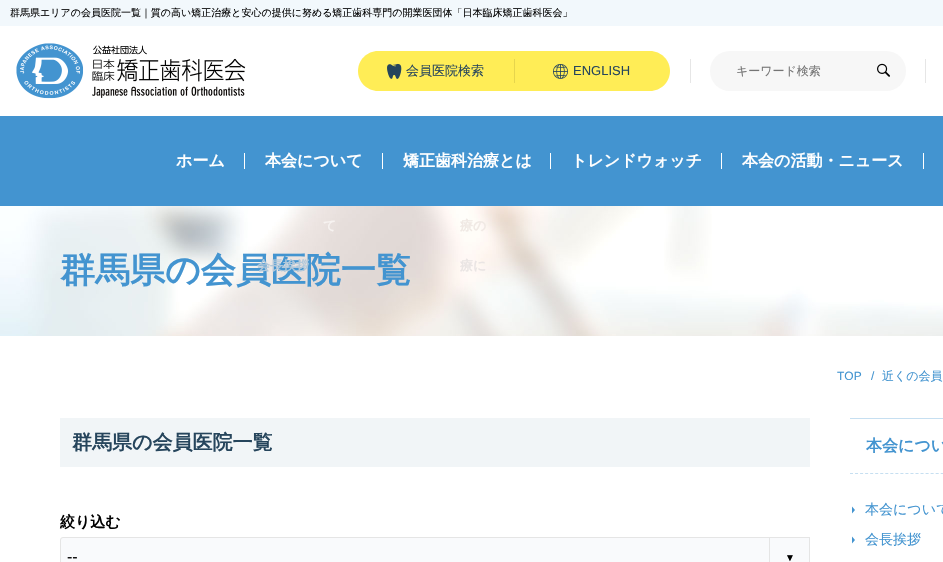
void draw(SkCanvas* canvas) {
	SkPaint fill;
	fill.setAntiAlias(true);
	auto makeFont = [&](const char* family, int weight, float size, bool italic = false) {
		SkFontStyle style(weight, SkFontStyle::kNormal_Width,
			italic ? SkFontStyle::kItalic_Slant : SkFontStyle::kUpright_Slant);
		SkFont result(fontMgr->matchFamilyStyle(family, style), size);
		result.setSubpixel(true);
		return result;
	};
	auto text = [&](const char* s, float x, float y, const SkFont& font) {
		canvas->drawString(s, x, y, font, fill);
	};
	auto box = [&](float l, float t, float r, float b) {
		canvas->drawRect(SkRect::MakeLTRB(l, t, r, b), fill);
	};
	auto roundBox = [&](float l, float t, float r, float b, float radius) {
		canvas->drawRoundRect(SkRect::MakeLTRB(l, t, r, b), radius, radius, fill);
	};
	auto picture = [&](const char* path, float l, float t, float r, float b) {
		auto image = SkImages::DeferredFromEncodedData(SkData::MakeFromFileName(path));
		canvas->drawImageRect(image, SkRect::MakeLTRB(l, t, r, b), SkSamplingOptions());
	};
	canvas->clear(0xFFFFFFFF);
	fill.setColor(0xFFF2F8FC);
	box(0, 0, 943, 26);
	picture("image0.png", 16, 43, 246, 99);
	fill.setColor(0xFFFFED56);
	canvas->drawPath(SkPathBuilder().moveTo(378, 51).lineTo(514, 51).lineTo(514, 91).lineTo(378, 91).cubicTo(367, 91, 358, 82, 358, 71).cubicTo(358, 60, 367, 51, 378, 51).close().detach(), fill);
	picture("image1.png", 387, 63, 402, 79);
	canvas->drawPath(SkPathBuilder().moveTo(514, 51).lineTo(650, 51).cubicTo(661, 51, 670, 60, 670, 71).cubicTo(670, 82, 661, 91, 650, 91).lineTo(514, 91).close().detach(), fill);
	fill.setColor(0xFFE6D54D);
	box(514, 59, 515, 83);
	picture("image2.png", 553, 64, 568, 79);
	fill.setColor(0xFFE6E6E6);
	box(690, 59, 691, 83);
	fill.setColor(0xFFF7F7F7);
	roundBox(710, 51, 906, 91, 20);
	picture("image3.png", 877, 63, 890, 77);
	fill.setColor(0xFFE6E6E6);
	box(925, 59, 926, 83);
	fill.setColor(0xFF4394D0);
	box(0, 116, 943, 206);
	fill.setColor(0xFFFFFFFF);
	box(244, 153, 245, 169);
	box(382, 153, 383, 169);
	box(550, 153, 551, 169);
	box(721, 153, 722, 169);
	box(923, 153, 924, 169);
	picture("image4.png", 0, 206, 943, 336);
	fill.setColor(0xFFF1F5F7);
	box(60, 418, 810, 467);
	fill.setColor(0xFFF9FAFC);
	canvas->drawPath(SkPathBuilder().moveTo(63, 537).lineTo(810, 537).lineTo(810, 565).lineTo(63, 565).cubicTo(61.5f, 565, 60, 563.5f, 60, 562).lineTo(60, 540).cubicTo(60, 538.5f, 61.5f, 537, 63, 537).close().detach(), fill);
	fill.setColor(0xFFC6DFF1);
	box(850, 418, 943, 419);
	fill.setStyle(SkPaint::kStroke_Style);
	fill.setStrokeWidth(1);
	fill.setPathEffect(SkDashPathEffect::Make({{3, 2.04f}}, 0));
	canvas->drawPath(SkPathBuilder().moveTo(850, 473.5f).lineTo(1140, 473.5f).detach(), fill);
	fill.setPathEffect(nullptr);
	auto font1 = makeFont("WenQuanYi Zen Hei", 500, 10);
	fill.setStyle(SkPaint::kFill_Style);
	fill.setColor(0xFF000000);
	text("群馬県エリアの会員医院一覧｜質の高い矯正治療と安心の提供に努める矯正歯科専門の開業医団体「日本臨床矯正歯科医会」", 10, 16, font1);
	auto font2 = makeFont("WenQuanYi Zen Hei", 500, 13);
	fill.setColor(0xFF26455C);
	text("会員医院検索", 406, 75, font2);
	auto font3 = makeFont("Liberation Sans", 400, 13);
	text("ENGLISH", 573, 75, font3);
	auto font4 = makeFont("WenQuanYi Zen Hei", 500, 12);
	fill.setColor(0xFF757575);
	text("キーワード検索", 736, 75, font4);
	auto font5 = makeFont("WenQuanYi Zen Hei", 700, 16);
	fill.setColor(0xFFFFFFFF);
	text("ホーム", 176, 166, font5);
	text("本会について", 265, 166, font5);
	auto font6 = makeFont("WenQuanYi Zen Hei", 700, 13);
	fill.setColor(0xFFF7F3F1);
	text("て", 323, 230, font6);
	fill.setColor(0xFFFFFFFF);
	text("矯正歯科治療とは", 403, 166, font5);
	fill.setColor(0xFFF0E9E4);
	text("療の", 460, 230, font6);
	fill.setColor(0xFFEAE5E4);
	text("療に", 460, 270, font6);
	fill.setColor(0xFFFFFFFF);
	text("トレンドウォッチ", 571, 166, font5);
	text("本会の活動・ニュース", 742, 166, font5);
	auto font7 = makeFont("WenQuanYi Zen Hei", 700, 35);
	fill.setColor(0xFF4394D0);
	text("群馬県の会員医院一覧", 60, 282, font7);
	fill.setColor(0xFFB2C9DB);
	text("会長挨拶", 257, 270, font6);
	auto font8 = makeFont("Liberation Sans", 400, 12);
	fill.setColor(0xFF4394D0);
	text("TOP", 837, 380, font8);
	text("/", 871, 380, font8);
	text("近くの会員", 882, 380, font4);
	auto font9 = makeFont("WenQuanYi Zen Hei", 700, 20);
	fill.setColor(0xFF26455C);
	text("群馬県の会員医院一覧", 72, 449, font9);
	auto font10 = makeFont("WenQuanYi Zen Hei", 700, 15);
	fill.setColor(0xFF000000);
	text("絞り込む", 60, 527, font10);
	fill.setColor(0xFF4394D0);
	text("本会につい", 866, 451, font5);
	auto font11 = makeFont("WenQuanYi Zen Hei", 500, 14);
	text("本会について", 865, 514, font11);
	text("会長挨拶", 865, 544, font11);
	canvas->save();
	canvas->clipRect(SkRect::MakeLTRB(60, 537, 810, 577));
	fill.setStyle(SkPaint::kStroke_Style);
	fill.setColor(0xFFE5E5E5);
	canvas->drawRoundRect(SkRect::MakeLTRB(60.5f, 537.5f, 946.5f, 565.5f), 2.5f, 2.5f, fill);
	canvas->restore();
	fill.setStyle(SkPaint::kFill_Style);
	box(769, 537, 770, 562);
	fill.setColor(0xFF4394D0);
	canvas->drawPath(SkPathBuilder().moveTo(852, 506.5f).lineTo(852, 513.5f).lineTo(855, 510).close().moveTo(852, 536.5f).lineTo(852, 543.5f).lineTo(855, 540).close().detach(), fill);
	auto font12 = makeFont("Liberation Sans", 400, 10);
	fill.setColor(0xFF000000);
	text("▼", 785, 561, font12);
	fill.setColor(0xFFE5E5E5);
	box(809, 537, 810, 562);
	auto font13 = makeFont("Liberation Sans", 400, 16);
	fill.setColor(0xFF000000);
	text("--", 67, 562, font13);
}
